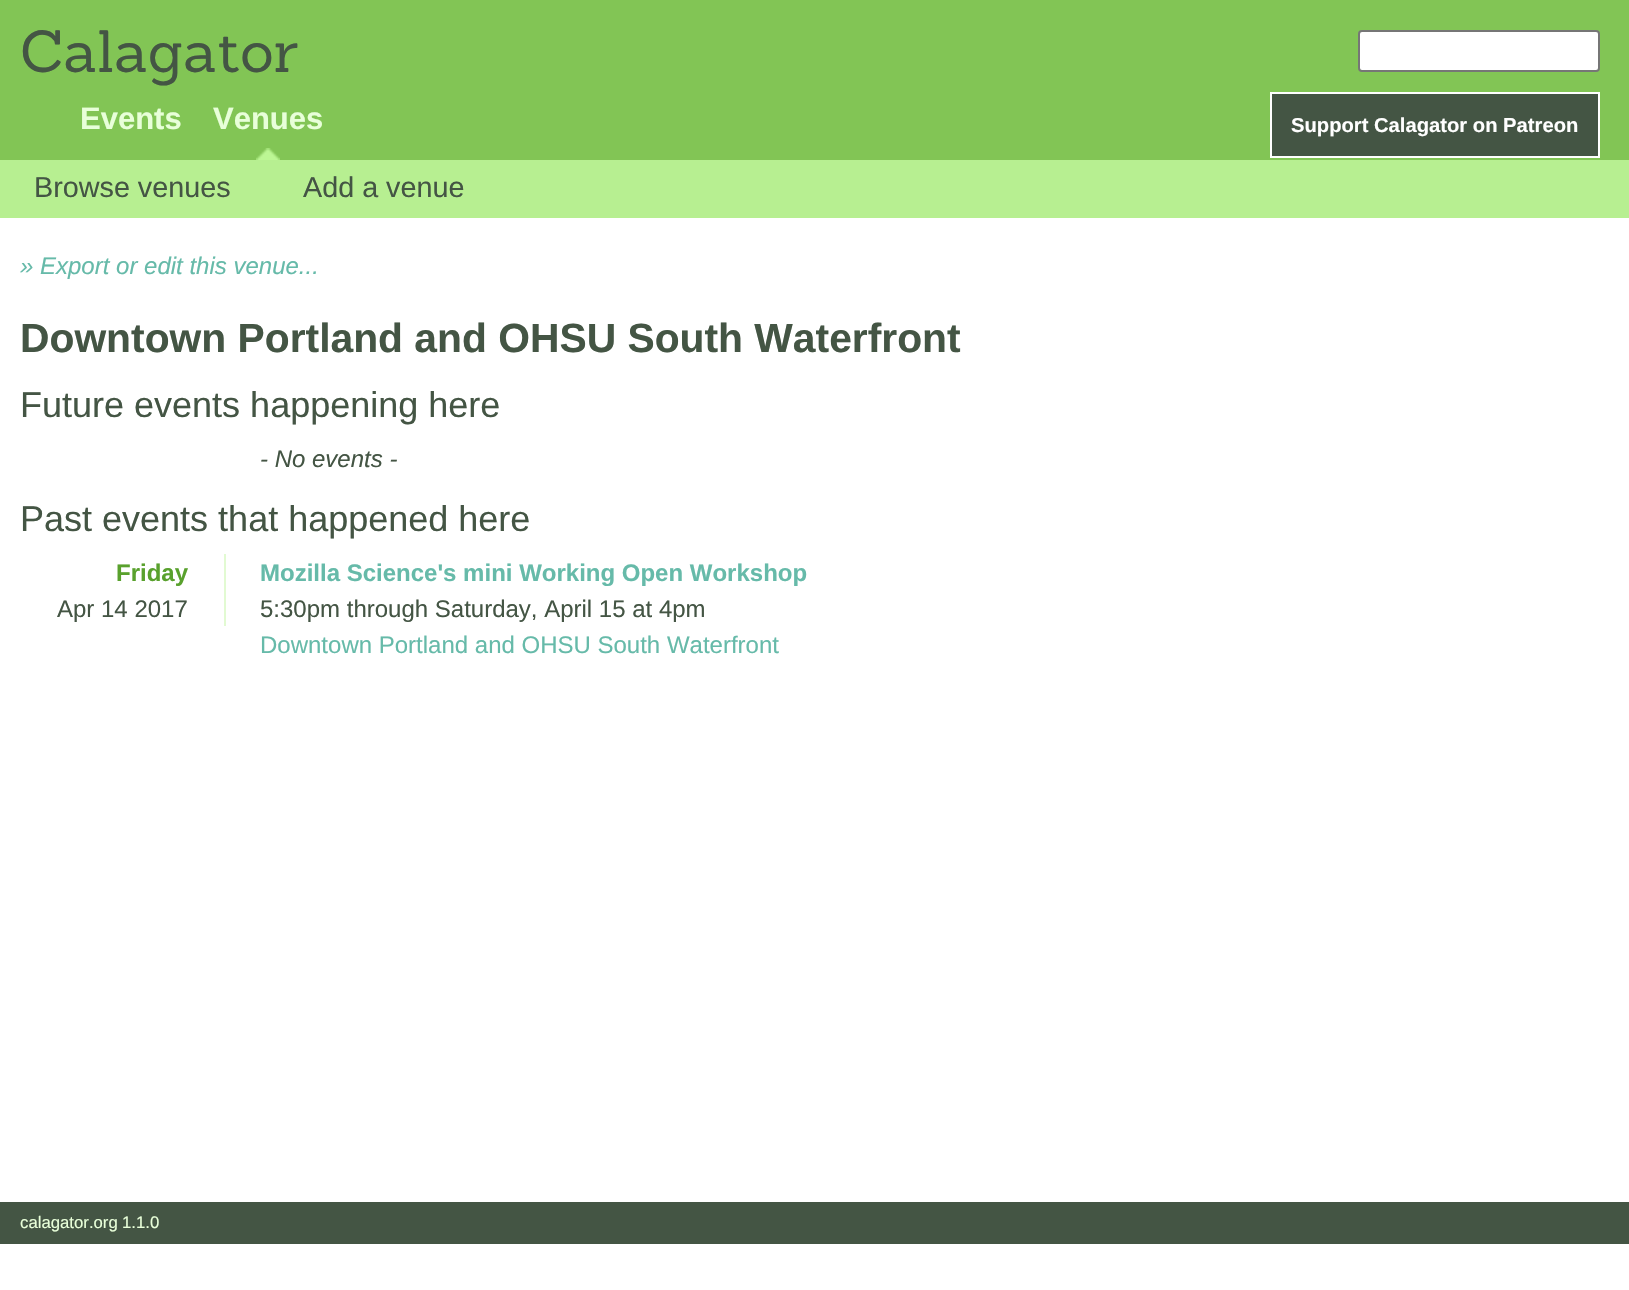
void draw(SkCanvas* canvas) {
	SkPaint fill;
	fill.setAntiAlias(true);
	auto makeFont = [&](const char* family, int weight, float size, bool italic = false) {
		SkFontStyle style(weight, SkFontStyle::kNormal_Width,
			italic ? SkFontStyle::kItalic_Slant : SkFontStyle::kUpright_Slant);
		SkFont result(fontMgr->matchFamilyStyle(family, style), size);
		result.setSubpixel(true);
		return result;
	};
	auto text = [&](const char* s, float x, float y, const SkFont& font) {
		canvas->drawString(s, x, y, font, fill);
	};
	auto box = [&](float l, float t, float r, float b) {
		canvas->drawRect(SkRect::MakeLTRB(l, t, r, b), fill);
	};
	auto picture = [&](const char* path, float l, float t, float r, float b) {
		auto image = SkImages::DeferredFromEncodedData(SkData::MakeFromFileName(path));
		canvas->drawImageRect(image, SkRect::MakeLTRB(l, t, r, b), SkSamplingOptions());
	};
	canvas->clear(0xFFFFFFFF);
	fill.setColor(0xFF82C555);
	box(0, 0, 1629, 160);
	fill.setColor(0xFFFFFFFF);
	canvas->drawRoundRect(SkRect::MakeLTRB(1359, 31, 1599, 71), 3, 3, fill);
	fill.setStyle(SkPaint::kStroke_Style);
	fill.setStrokeWidth(2);
	fill.setColor(0xFF767676);
	canvas->drawRoundRect(SkRect::MakeLTRB(1359, 31, 1599, 71), 3, 3, fill);
	picture("image0.png", 256, 148, 280, 160);
	fill.setStyle(SkPaint::kFill_Style);
	fill.setColor(0xFF445544);
	canvas->drawRect(SkRect::MakeLTRB(1271, 93, 1599, 157), fill);
	fill.setStyle(SkPaint::kStroke_Style);
	fill.setColor(0xFFFFFFFF);
	canvas->drawRect(SkRect::MakeLTRB(1271, 93, 1599, 157), fill);
	fill.setStyle(SkPaint::kFill_Style);
	fill.setColor(0xFFB7EF91);
	box(0, 160, 1629, 218);
	fill.setColor(0xFFE2FAD2);
	box(224, 554, 226, 626);
	fill.setColor(0xFF445544);
	box(0, 1202, 1629, 1244);
	auto font1 = makeFont("Sanchez", 400, 58);
	text("Calagator", 20, 72, font1);
	auto font2 = makeFont("Liberation Sans", 700, 31);
	fill.setColor(0xFFE8FFD9);
	text("Events", 80, 129, font2);
	text("Venues", 213, 129, font2);
	auto font3 = makeFont("Liberation Sans", 700, 20.2f);
	fill.setColor(0xFFFFFFFF);
	text("Support Calagator on Patreon", 1291, 132, font3);
	auto font4 = makeFont("Liberation Sans", 400, 28.75f);
	fill.setColor(0xFF445544);
	text("Browse venues", 34, 197, font4);
	text("Add a venue", 303, 197, font4);
	auto font5 = makeFont("Liberation Sans", 400, 24, true);
	fill.setColor(0xFF66BAA9);
	text("» Export or edit this venue...", 20, 274, font5);
	auto font6 = makeFont("Liberation Sans", 700, 40.8f);
	fill.setColor(0xFF445544);
	text("Downtown Portland and OHSU South Waterfront", 20, 352, font6);
	auto font7 = makeFont("Liberation Sans", 400, 36);
	text("Future events happening here", 20, 417, font7);
	text("- No events -", 260, 467, font5);
	text("Past events that happened here", 20, 531, font7);
	auto font8 = makeFont("Liberation Sans", 700, 24);
	fill.setColor(0xFF59A12D);
	text("Friday", 116, 581, font8);
	auto font9 = makeFont("Liberation Sans", 400, 24);
	fill.setColor(0xFF445544);
	text("Apr 14 2017", 57, 617, font9);
	fill.setColor(0xFF66BAA9);
	text("Mozilla Science's mini Working Open Workshop", 260, 581, font8);
	fill.setColor(0xFF445544);
	text("5:30pm through Saturday, April 15 at 4pm", 260, 617, font9);
	fill.setColor(0xFF66BAA9);
	text("Downtown Portland and OHSU South Waterfront", 260, 653, font9);
	auto font10 = makeFont("Liberation Sans", 400, 16.75f);
	fill.setColor(0xFFE8FFD9);
	text("calagator.org", 20, 1228, font10);
	text("1.1.0", 122, 1228, font10);
}
